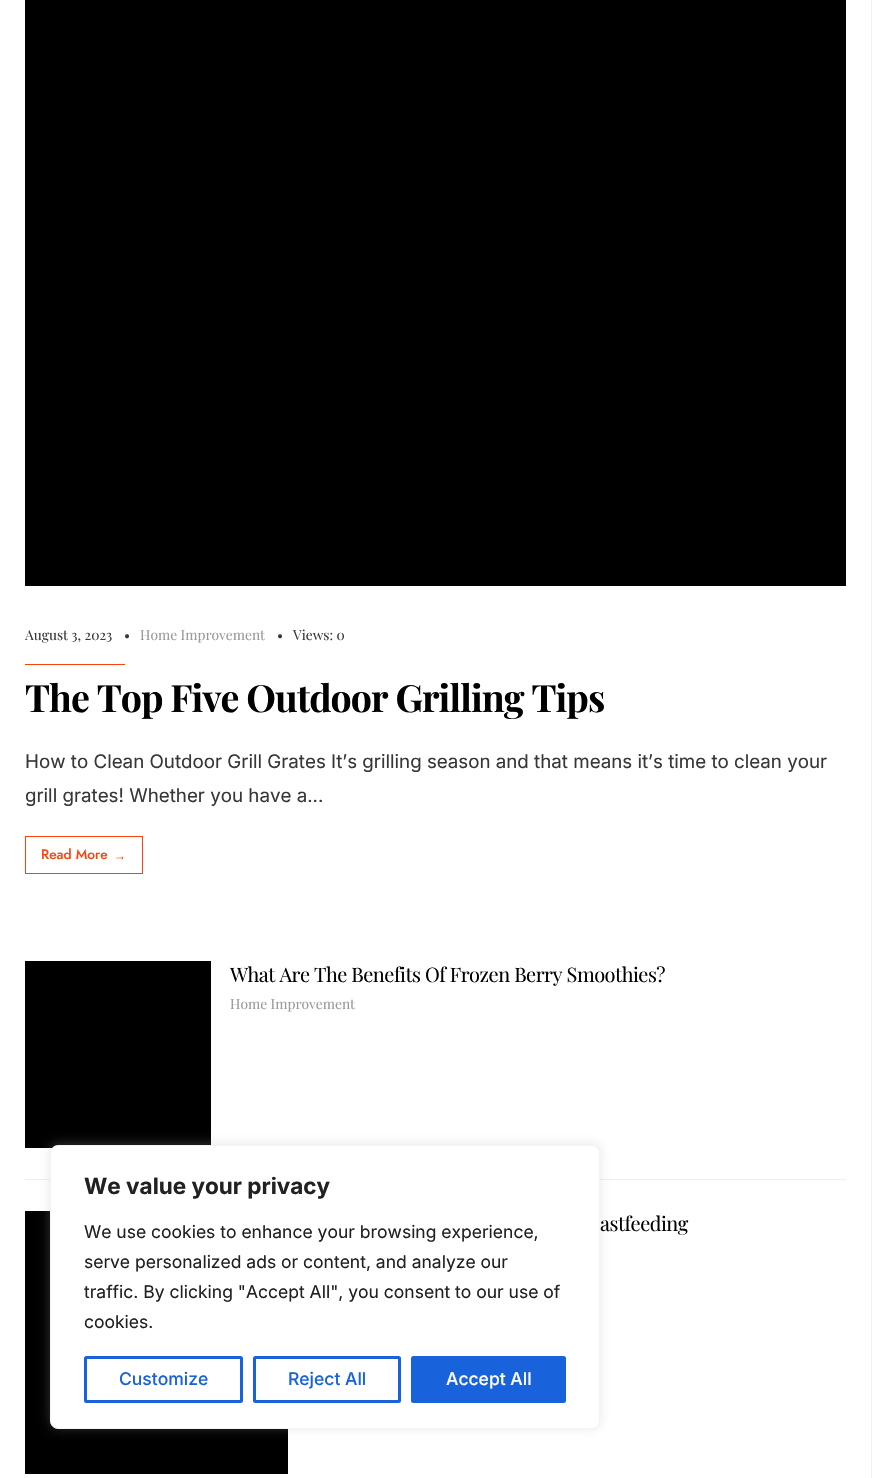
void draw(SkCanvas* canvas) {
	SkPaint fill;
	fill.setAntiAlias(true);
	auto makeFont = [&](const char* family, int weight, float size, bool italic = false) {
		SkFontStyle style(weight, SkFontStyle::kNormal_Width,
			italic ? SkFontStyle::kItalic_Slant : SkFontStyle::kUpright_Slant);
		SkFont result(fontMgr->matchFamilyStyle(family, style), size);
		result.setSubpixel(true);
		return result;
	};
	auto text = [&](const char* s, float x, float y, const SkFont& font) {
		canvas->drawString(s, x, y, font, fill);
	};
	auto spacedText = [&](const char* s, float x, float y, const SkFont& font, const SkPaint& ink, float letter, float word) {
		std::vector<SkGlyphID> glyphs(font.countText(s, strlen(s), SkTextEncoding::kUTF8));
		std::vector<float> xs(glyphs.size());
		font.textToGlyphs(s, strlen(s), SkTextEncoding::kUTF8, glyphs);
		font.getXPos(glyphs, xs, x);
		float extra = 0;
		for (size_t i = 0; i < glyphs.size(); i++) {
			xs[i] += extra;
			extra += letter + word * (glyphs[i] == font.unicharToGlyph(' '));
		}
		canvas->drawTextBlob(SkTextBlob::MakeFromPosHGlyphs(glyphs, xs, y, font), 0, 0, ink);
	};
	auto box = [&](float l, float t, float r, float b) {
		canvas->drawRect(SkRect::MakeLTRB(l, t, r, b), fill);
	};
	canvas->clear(0xFFFFFFFF);
	fill.setColor(0xFFF0F0F0);
	box(871, 0, 872, 1478);
	fill.setColor(0xFF000000);
	box(25, 0, 846, 586);
	fill.setColor(0xFFFA430B);
	box(25, 664, 125, 665);
	fill.setStyle(SkPaint::kStroke_Style);
	fill.setStrokeWidth(1);
	canvas->drawRect(SkRect::MakeLTRB(25.5f, 836.5f, 142.5f, 873.5f), fill);
	fill.setStyle(SkPaint::kFill_Style);
	fill.setColor(0xFF000000);
	box(25, 961, 211, 1148);
	fill.setColor(0xFFEFEFEF);
	box(25, 1179, 846, 1180);
	fill.setColor(0xFF000000);
	box(25, 1211, 288, 1474);
	fill.setColor(0x4DACABAB);
	fill.setMaskFilter(SkMaskFilter::MakeBlur(kNormal_SkBlurStyle, 6));
	canvas->drawRoundRect(SkRect::MakeLTRB(50, 1144, 600, 1428), 8, 8, fill);
	fill.setMaskFilter(nullptr);
	fill.setColor(0xFFFFFFFF);
	canvas->drawRoundRect(SkRect::MakeLTRB(50.5f, 1145.5f, 599.5f, 1428.5f), 7.5f, 7.5f, fill);
	fill.setStyle(SkPaint::kStroke_Style);
	fill.setColor(0xFFF4F4F4);
	canvas->drawRoundRect(SkRect::MakeLTRB(50.5f, 1145.5f, 599.5f, 1428.5f), 7.5f, 7.5f, fill);
	fill.setStrokeWidth(3);
	fill.setColor(0xFF1863DC);
	canvas->drawRoundRect(SkRect::MakeLTRB(85.5f, 1357.5f, 241.5f, 1401.5f), 1, 1, fill);
	canvas->drawRoundRect(SkRect::MakeLTRB(254.5f, 1357.5f, 399.5f, 1401.5f), 1, 1, fill);
	fill.setStyle(SkPaint::kFill_Style);
	canvas->drawRoundRect(SkRect::MakeLTRB(412.5f, 1357.5f, 564.5f, 1401.5f), 1, 1, fill);
	fill.setStyle(SkPaint::kStroke_Style);
	canvas->drawRoundRect(SkRect::MakeLTRB(412.5f, 1357.5f, 564.5f, 1401.5f), 1, 1, fill);
	auto font1 = makeFont("Playfair Display", 400, 13.75f);
	fill.setStyle(SkPaint::kFill_Style);
	fill.setColor(0xFF373737);
	text("August 3, 2023", 25, 640, font1);
	text("•", 124, 640, font1);
	fill.setColor(0xFF999999);
	text("Home Improvement", 140, 640, font1);
	fill.setColor(0xFF373737);
	text("•", 277, 640, font1);
	text("Views: 0", 293, 640, font1);
	auto font2 = makeFont("Playfair Display", 700, 37.5f);
	fill.setColor(0xFF000000);
	spacedText("The Top Five Outdoor Grilling Tips", 25, 712, font2, fill, -0.95f, 0);
	auto font3 = makeFont("Inter", 400, 18.75f);
	fill.setColor(0xFF373737);
	text("How to Clean Outdoor Grill Grates It’s grilling season and that means it’s time to clean your", 25, 768, font3);
	text("grill grates! Whether you have a...", 25, 802, font3);
	auto font4 = makeFont("Jost", 500, 13.75f);
	fill.setColor(0xFFFA430B);
	text("Read More", 41, 859, font4);
	auto font5 = makeFont("Liberation Serif", 400, 12);
	text("→", 114, 860, font5);
	auto font6 = makeFont("Playfair Display", 400, 20);
	fill.setColor(0xFF000000);
	spacedText("What Are The Benefits Of Frozen Berry Smoothies?", 230, 982, font6, fill, -0.5f, 0);
	fill.setColor(0xFF999999);
	text("Home Improvement", 230, 1009, font1);
	fill.setColor(0xFF000000);
	spacedText("astfeeding", 600, 1231, font6, fill, -0.5f, 0);
	auto font7 = makeFont("Inter", 700, 22.5f);
	fill.setColor(0xFF212121);
	text("We value your privacy", 84, 1194, font7);
	auto font8 = makeFont("Inter", 400, 17.5f);
	text("We use cookies to enhance your browsing experience,", 84, 1238, font8);
	text("serve personalized ads or content, and analyze our", 84, 1268, font8);
	text("traffic. By clicking \"Accept All\", you consent to our use of", 84, 1298, font8);
	text("cookies.", 84, 1328, font8);
	auto font9 = makeFont("Inter", 500, 17.5f);
	fill.setColor(0xFF1863DC);
	text("Customize", 119, 1385, font9);
	text("Reject All", 288, 1385, font9);
	fill.setColor(0xFFFFFFFF);
	text("Accept All", 446, 1385, font9);
}
